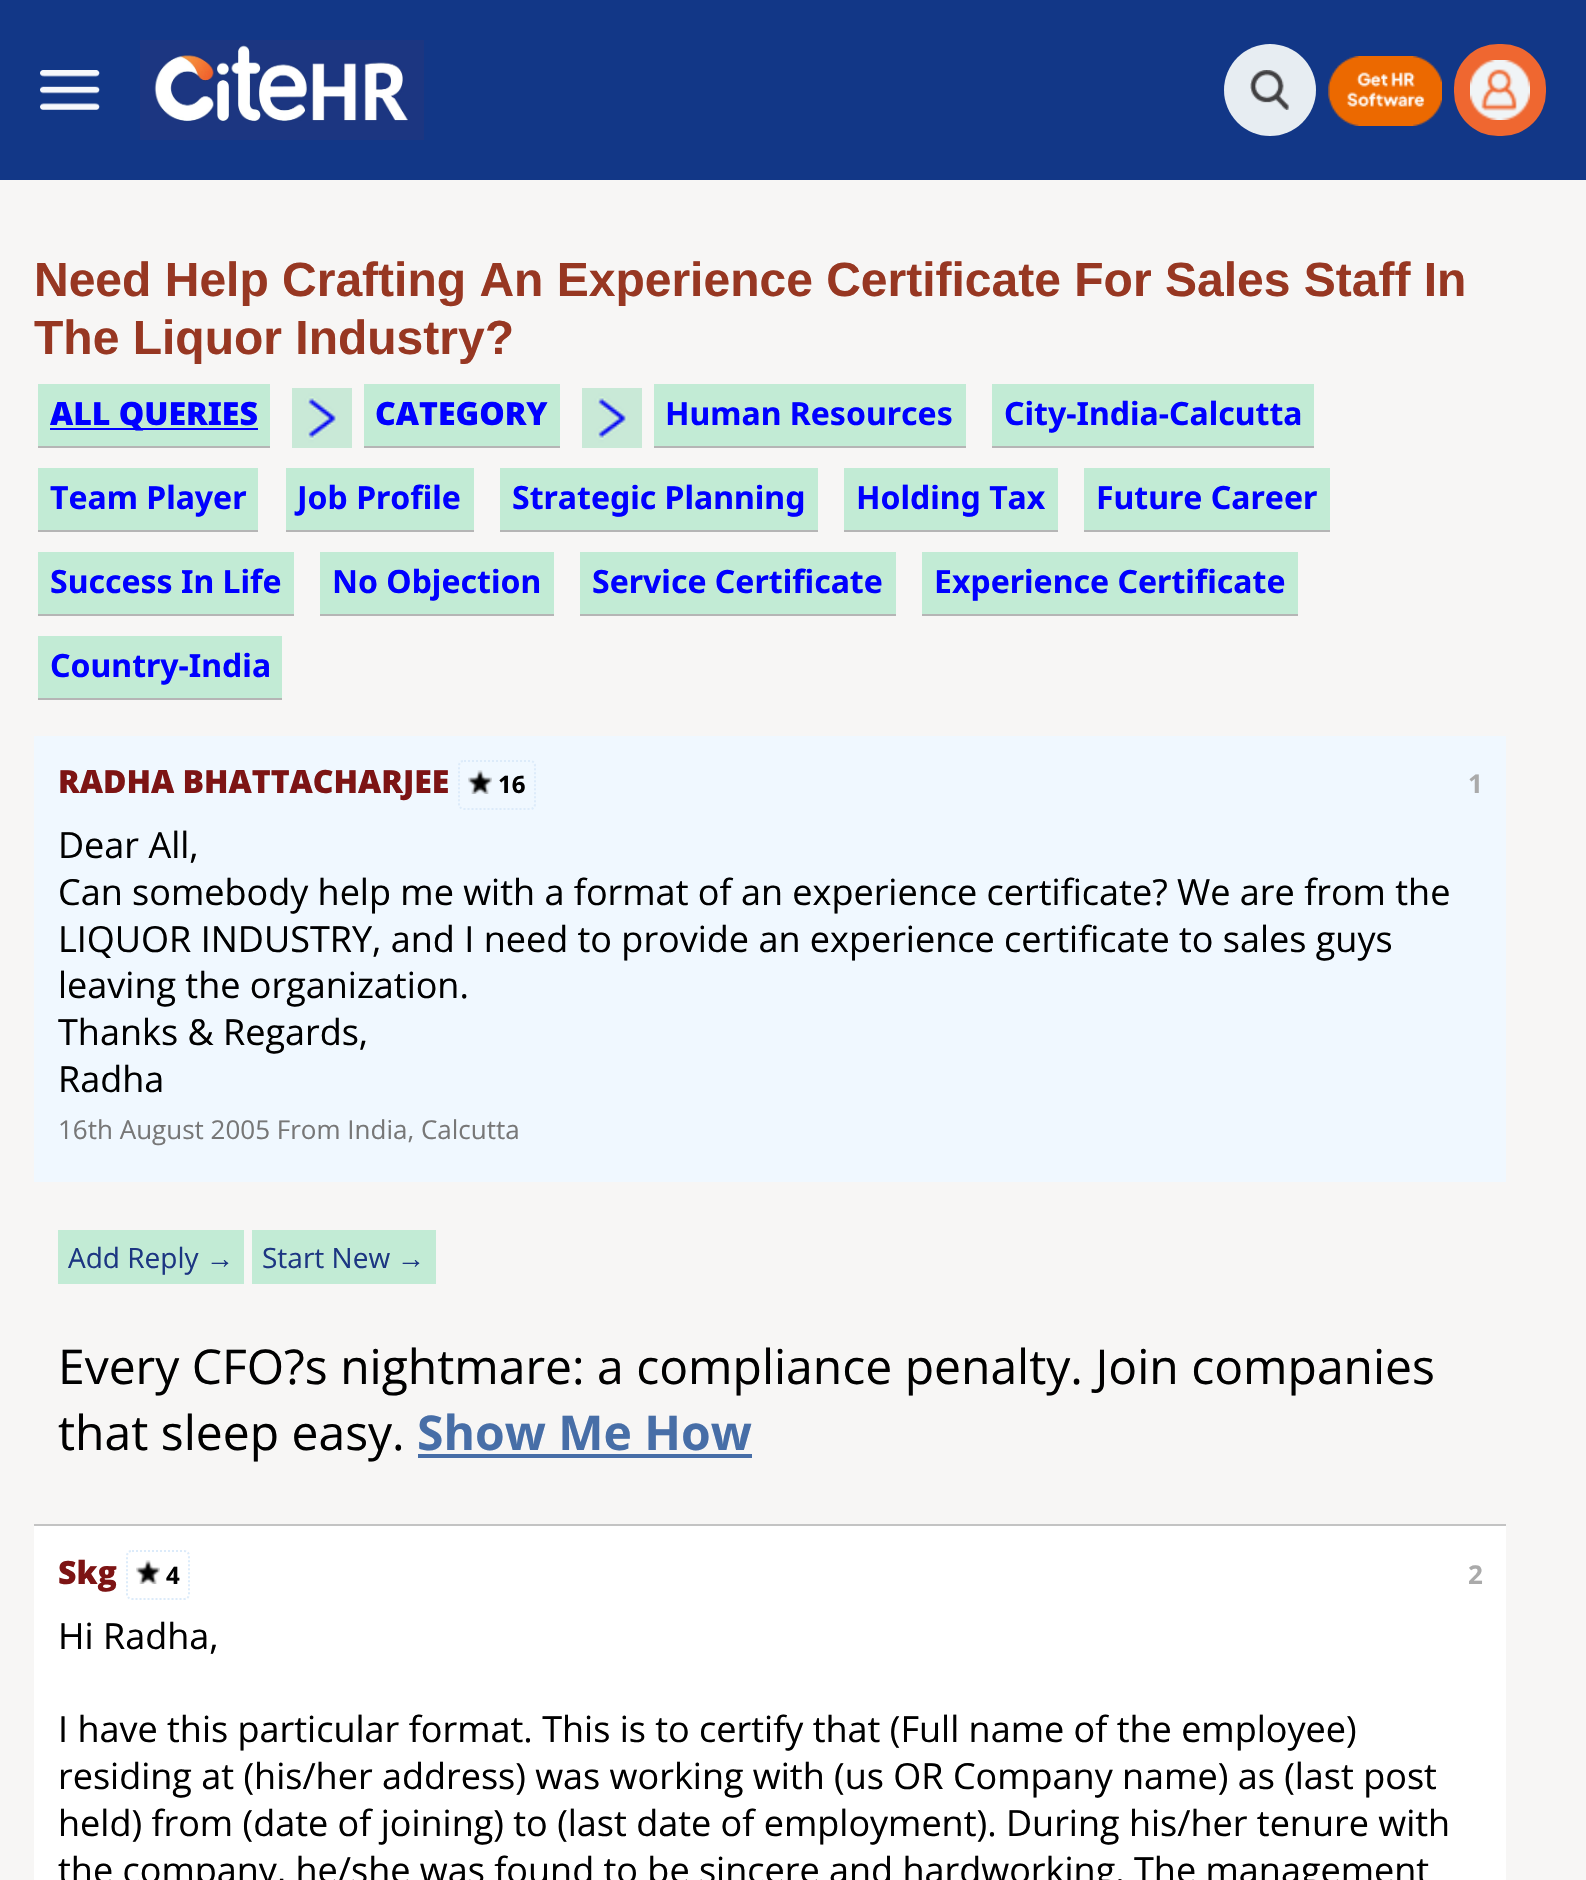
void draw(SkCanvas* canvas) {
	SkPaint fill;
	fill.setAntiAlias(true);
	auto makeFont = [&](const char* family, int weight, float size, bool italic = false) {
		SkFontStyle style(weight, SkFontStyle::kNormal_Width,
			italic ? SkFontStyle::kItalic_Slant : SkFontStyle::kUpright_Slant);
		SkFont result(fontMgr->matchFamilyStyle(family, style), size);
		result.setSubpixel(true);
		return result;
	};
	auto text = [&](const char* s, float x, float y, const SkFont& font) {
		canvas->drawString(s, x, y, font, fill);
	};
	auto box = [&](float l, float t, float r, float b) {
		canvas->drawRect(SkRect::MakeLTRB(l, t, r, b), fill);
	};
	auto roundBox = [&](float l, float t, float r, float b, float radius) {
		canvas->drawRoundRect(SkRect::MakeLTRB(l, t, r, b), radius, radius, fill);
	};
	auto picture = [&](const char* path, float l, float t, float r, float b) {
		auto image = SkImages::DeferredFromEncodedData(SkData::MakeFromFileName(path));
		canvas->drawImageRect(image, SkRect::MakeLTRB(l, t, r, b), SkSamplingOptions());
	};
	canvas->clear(0xFFF7F6F5);
	fill.setColor(0xFF123787);
	box(0, 0, 1586, 180);
	picture("image0.png", 40, 70, 100, 110);
	picture("image1.png", 140, 40, 424, 140);
	fill.setColor(0xFFE7EDF2);
	canvas->drawCircle(1270, 90, 46, fill);
	picture("image2.png", 1250, 70, 1289, 110);
	picture("image3.png", 1328, 56, 1442, 126);
	fill.setColor(0xFFEF6730);
	roundBox(1454, 44, 1546, 136, 44);
	picture("image4.png", 1470, 60, 1530, 120);
	picture("image5.png", 292, 388, 352, 448);
	picture("image5.png", 582, 388, 642, 448);
	fill.setColor(0xFFC2EBD5);
	box(654, 384, 966, 446);
	fill.setColor(0xFFB5B5B5);
	box(654, 446, 966, 448);
	fill.setColor(0xFFC2EBD5);
	box(992, 384, 1314, 446);
	fill.setColor(0xFFB5B5B5);
	box(992, 446, 1314, 448);
	fill.setColor(0xFFC2EBD5);
	box(38, 468, 258, 530);
	fill.setColor(0xFFB5B5B5);
	box(38, 530, 258, 532);
	fill.setColor(0xFFC2EBD5);
	box(286, 468, 474, 530);
	fill.setColor(0xFFB5B5B5);
	box(286, 530, 474, 532);
	fill.setColor(0xFFC2EBD5);
	box(500, 468, 818, 530);
	fill.setColor(0xFFB5B5B5);
	box(500, 530, 818, 532);
	fill.setColor(0xFFC2EBD5);
	box(844, 468, 1058, 530);
	fill.setColor(0xFFB5B5B5);
	box(844, 530, 1058, 532);
	fill.setColor(0xFFC2EBD5);
	box(1084, 468, 1330, 530);
	fill.setColor(0xFFB5B5B5);
	box(1084, 530, 1330, 532);
	fill.setColor(0xFFC2EBD5);
	box(38, 552, 294, 614);
	fill.setColor(0xFFB5B5B5);
	box(38, 614, 294, 616);
	fill.setColor(0xFFC2EBD5);
	box(320, 552, 554, 614);
	fill.setColor(0xFFB5B5B5);
	box(320, 614, 554, 616);
	fill.setColor(0xFFC2EBD5);
	box(580, 552, 896, 614);
	fill.setColor(0xFFB5B5B5);
	box(580, 614, 896, 616);
	fill.setColor(0xFFC2EBD5);
	box(922, 552, 1298, 614);
	fill.setColor(0xFFB5B5B5);
	box(922, 614, 1298, 616);
	fill.setColor(0xFFC2EBD5);
	box(38, 636, 282, 698);
	fill.setColor(0xFFB5B5B5);
	box(38, 698, 282, 700);
	fill.setColor(0xFFC2EBD5);
	box(38, 384, 270, 446);
	fill.setColor(0xFFB5B5B5);
	box(38, 446, 270, 448);
	fill.setColor(0xFF0000FF);
	box(50, 428, 258, 430);
	fill.setColor(0xFFC2EBD5);
	box(364, 384, 560, 446);
	fill.setColor(0xFFB5B5B5);
	box(364, 446, 560, 448);
	fill.setColor(0xFFF0F8FF);
	box(34, 736, 1506, 1182);
	fill.setStyle(SkPaint::kStroke_Style);
	fill.setStrokeWidth(2);
	fill.setColor(0xFFDCEBFA);
	fill.setPathEffect(SkDashPathEffect::Make({{2, 2}}, 0));
	canvas->drawPath(SkPathBuilder().moveTo(464, 761).lineTo(530, 761).cubicTo(533, 761, 535, 763, 535, 766).lineTo(535, 804).cubicTo(535, 807, 533, 809, 530, 809).lineTo(464, 809).cubicTo(461, 809, 459, 807, 459, 804).lineTo(459, 766).cubicTo(459, 763, 461, 761, 464, 761).close().detach(), fill);
	fill.setPathEffect(nullptr);
	picture("image6.png", 468, 770, 492, 794);
	fill.setStyle(SkPaint::kFill_Style);
	fill.setColor(0xFFC2EBD5);
	box(58, 1230, 244, 1284);
	box(252, 1230, 436, 1284);
	fill.setColor(0xFF476EA7);
	box(418, 1454, 752, 1458);
	fill.setColor(0xFFFFFFFF);
	box(34, 1526, 1506, 1880);
	fill.setColor(0xFFC3C3C3);
	box(34, 1524, 1506, 1526);
	fill.setStyle(SkPaint::kStroke_Style);
	fill.setColor(0xFFDCEBFA);
	fill.setPathEffect(SkDashPathEffect::Make({{2, 2}}, 0));
	canvas->drawPath(SkPathBuilder().moveTo(132, 1551).lineTo(184, 1551).cubicTo(187, 1551, 189, 1553, 189, 1556).lineTo(189, 1594).cubicTo(189, 1597, 187, 1599, 184, 1599).lineTo(132, 1599).cubicTo(129, 1599, 127, 1597, 127, 1594).lineTo(127, 1556).cubicTo(127, 1553, 129, 1551, 132, 1551).close().detach(), fill);
	fill.setPathEffect(nullptr);
	picture("image7.png", 136, 1560, 160, 1584);
	auto font1 = makeFont("Liberation Sans", 700, 48);
	fill.setStyle(SkPaint::kFill_Style);
	fill.setColor(0xFF973722);
	text("Need Help Crafting An Experience Certificate For Sales Staff In", 34, 296, font1);
	text("The Liquor Industry?", 34, 354, font1);
	auto font2 = makeFont("Noto Sans", 700, 32);
	fill.setColor(0xFF0000FF);
	text("Human Resources", 665, 425, font2);
	text("City-India-Calcutta", 1004, 425, font2);
	text("Team Player", 50, 509, font2);
	text("Job Profile", 297, 509, font2);
	text("Strategic Planning", 512, 509, font2);
	text("Holding Tax", 856, 509, font2);
	text("Future Career", 1096, 509, font2);
	text("Success In Life", 50, 593, font2);
	text("No Objection", 332, 593, font2);
	text("Service Certificate", 592, 593, font2);
	text("Experience Certificate", 934, 593, font2);
	text("Country-India", 50, 677, font2);
	auto font3 = makeFont("Noto Sans", 900, 32);
	text("ALL QUERIES", 50, 425, font3);
	text("CATEGORY", 375, 425, font3);
	auto font4 = makeFont("Open Sans", 800, 32);
	fill.setColor(0xFF7D1414);
	text("RADHA BHATTACHARJEE", 58, 793, font4);
	auto font5 = makeFont("Open Sans", 700, 24);
	fill.setColor(0xFF000000);
	text("16", 498, 793, font5);
	auto font6 = makeFont("Open Sans", 700, 26);
	fill.setColor(0xFFAAAAAA);
	text("1", 1468, 793, font6);
	auto font7 = makeFont("Open Sans", 400, 36);
	fill.setColor(0xFF000000);
	text("Dear All,", 58, 858, font7);
	text("Can somebody help me with a format of an experience certificate? We are from the", 58, 905, font7);
	text("LIQUOR INDUSTRY, and I need to provide an experience certificate to sales guys", 58, 952, font7);
	text("leaving the organization.", 58, 998, font7);
	text("Thanks & Regards,", 58, 1045, font7);
	text("Radha", 58, 1092, font7);
	auto font8 = makeFont("Open Sans", 400, 26);
	fill.setColor(0xFF777777);
	text("16th August 2005 From India, Calcutta", 58, 1139, font8);
	auto font9 = makeFont("Open Sans", 400, 28);
	fill.setColor(0xFF1C3682);
	text("Add Reply", 68, 1268, font9);
	auto font10 = makeFont("Liberation Sans", 400, 28);
	text("→", 206, 1268, font10);
	text("Start New", 262, 1268, font9);
	text("→", 397, 1268, font10);
	auto font11 = makeFont("Open Sans", 400, 48);
	fill.setColor(0xFF000000);
	text("Every CFO?s nightmare: a compliance penalty. Join companies", 58, 1384, font11);
	text("that sleep easy.", 58, 1450, font11);
	auto font12 = makeFont("Open Sans", 700, 48);
	fill.setColor(0xFF476EA7);
	text("Show Me How", 417, 1450, font12);
	fill.setColor(0xFF7D1414);
	text("Skg", 58, 1584, font4);
	fill.setColor(0xFF000000);
	text("4", 166, 1584, font5);
	fill.setColor(0xFFAAAAAA);
	text("2", 1468, 1584, font6);
	fill.setColor(0xFF000000);
	text("Hi Radha,", 58, 1649, font7);
	text("I have this particular format. This is to certify that (Full name of the employee)", 58, 1742, font7);
	text("residing at (his/her address) was working with (us OR Company name) as (last post", 58, 1789, font7);
	text("held) from (date of joining) to (last date of employment). During his/her tenure with", 58, 1836, font7);
	text("the company, he/she was found to be sincere and hardworking. The management", 58, 1883, font7);
}
